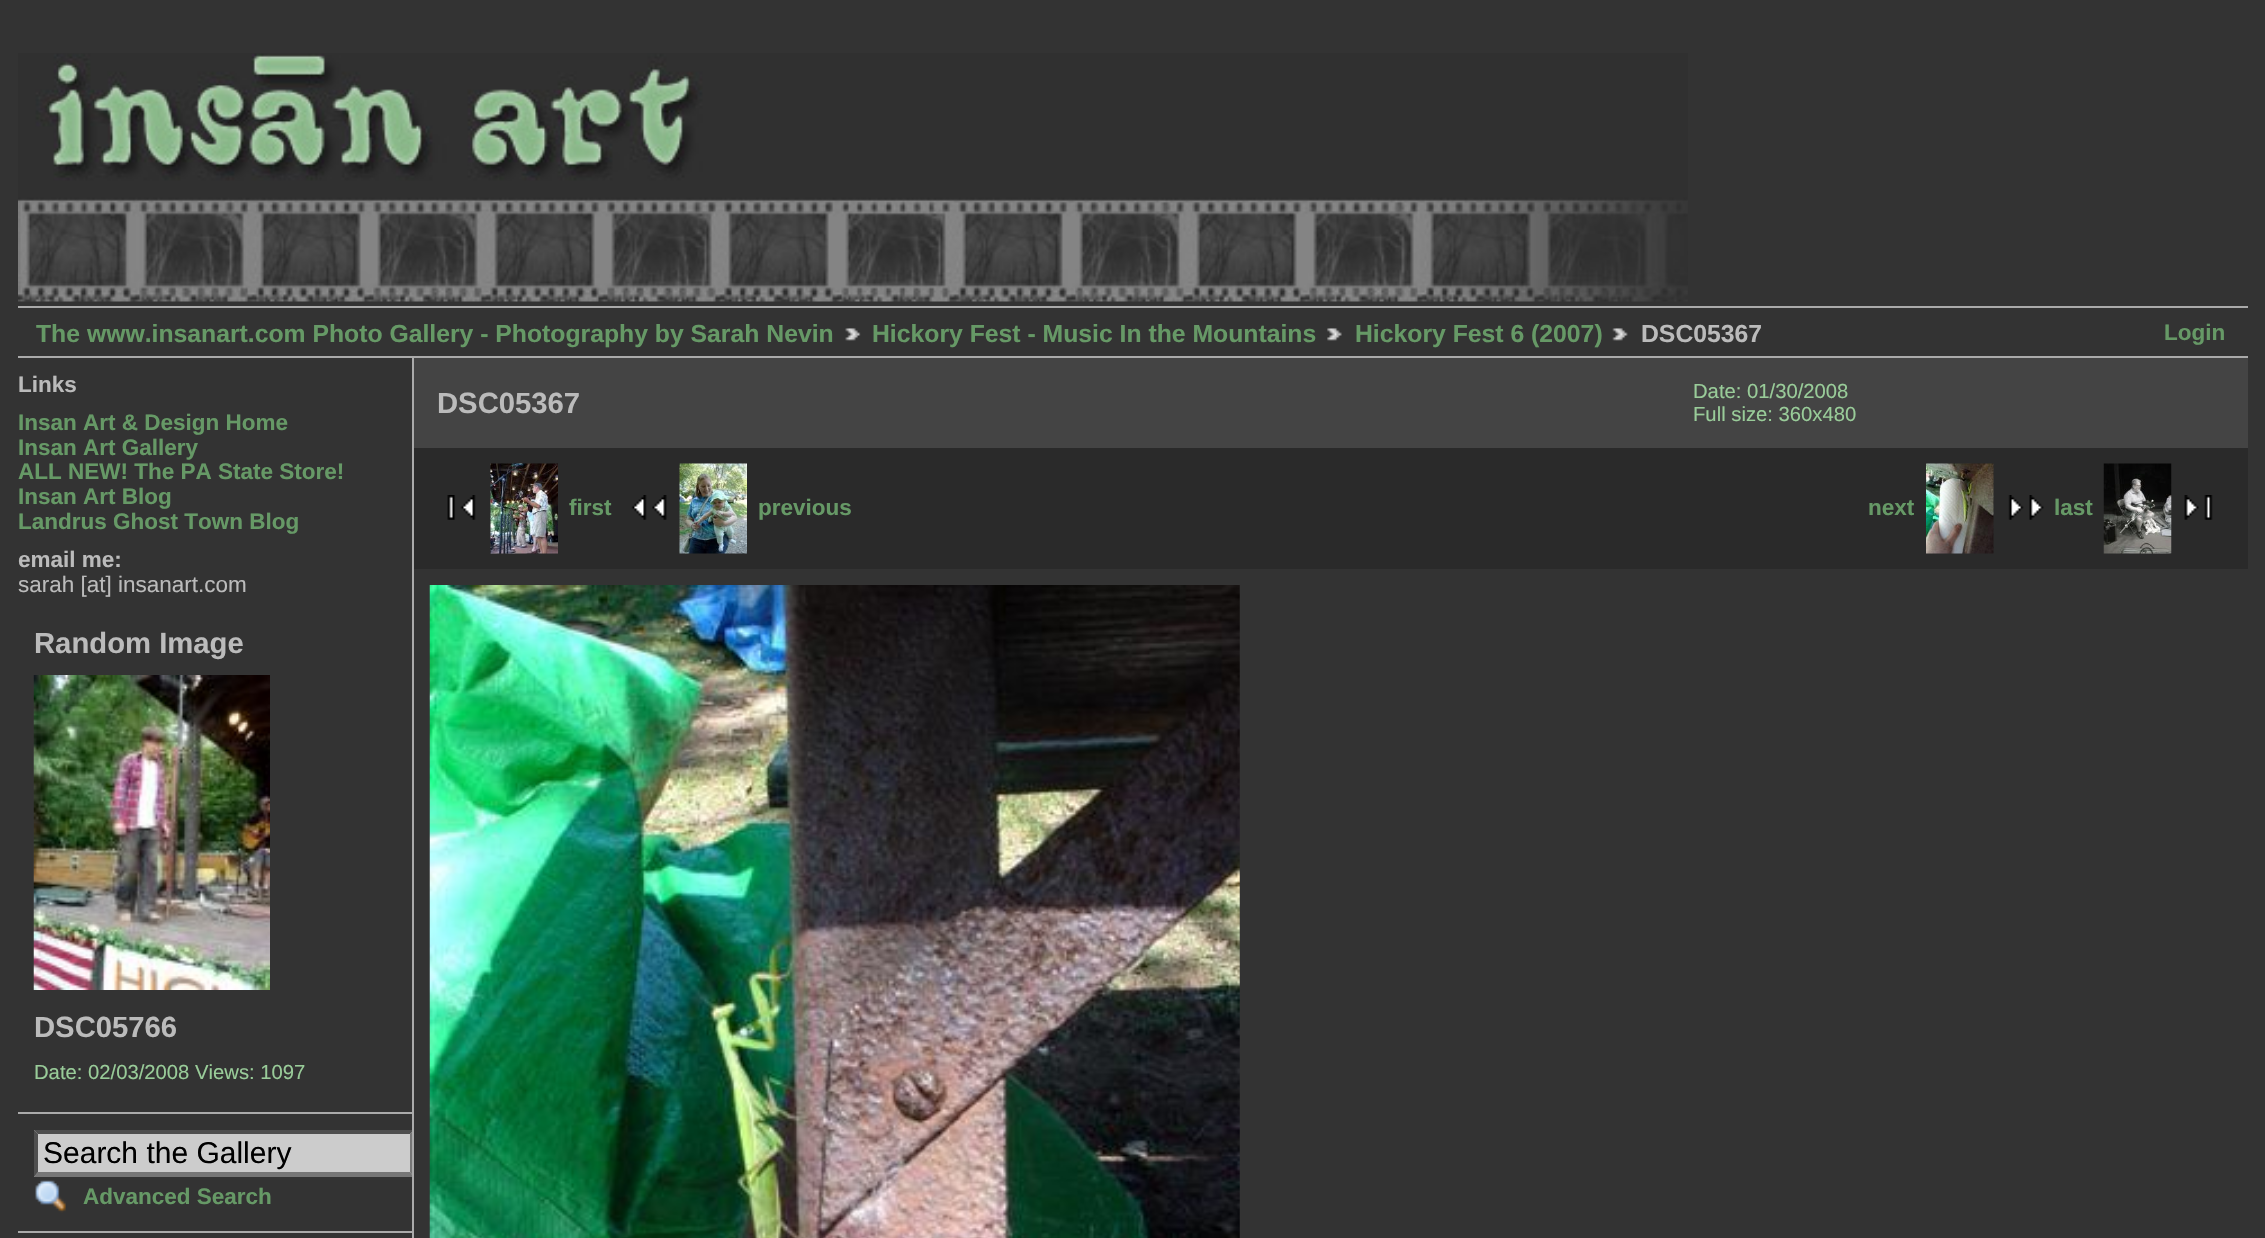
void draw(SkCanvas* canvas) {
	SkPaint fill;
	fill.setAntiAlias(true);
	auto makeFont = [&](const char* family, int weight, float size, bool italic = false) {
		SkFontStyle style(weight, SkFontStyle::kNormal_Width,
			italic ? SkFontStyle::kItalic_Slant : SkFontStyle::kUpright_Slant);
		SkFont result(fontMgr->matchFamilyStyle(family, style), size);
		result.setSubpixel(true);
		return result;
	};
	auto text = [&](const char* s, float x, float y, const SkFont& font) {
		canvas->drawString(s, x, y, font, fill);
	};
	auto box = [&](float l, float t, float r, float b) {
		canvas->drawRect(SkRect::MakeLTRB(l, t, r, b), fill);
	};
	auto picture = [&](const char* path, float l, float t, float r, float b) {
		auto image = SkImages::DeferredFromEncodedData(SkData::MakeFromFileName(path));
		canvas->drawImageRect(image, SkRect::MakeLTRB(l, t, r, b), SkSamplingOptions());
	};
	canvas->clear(0xFF333333);
	picture("image0.png", 18, 53, 1688, 302);
	fill.setColor(0xFFAAAAAA);
	box(18, 306, 2248, 308);
	box(18, 356, 2248, 358);
	picture("image1.png", 845, 328, 861, 341);
	picture("image2.png", 1327, 328, 1342, 341);
	picture("image3.png", 1612, 328, 1628, 341);
	box(412, 358, 414, 1238);
	box(18, 1112, 412, 1114);
	picture("image4.png", 33, 675, 270, 990);
	box(18, 1231, 412, 1233);
	fill.setColor(0xFFCCCCCC);
	box(34, 1130, 412, 1177);
	canvas->save();
	canvas->clipRect(SkRect::MakeLTRB(18, 358, 412, 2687));
	fill.setColor(0xFF4F4F4F);
	canvas->drawPath(SkPathBuilder().moveTo(34, 1130).lineTo(414, 1130).lineTo(410, 1134).lineTo(38, 1134).close().detach(), fill);
	fill.setColor(0xFF767676);
	canvas->drawPath(SkPathBuilder().moveTo(414, 1130).lineTo(414, 1177).lineTo(410, 1172).lineTo(410, 1134).close().detach(), fill);
	canvas->drawPath(SkPathBuilder().moveTo(414, 1177).lineTo(34, 1177).lineTo(38, 1172).lineTo(410, 1172).close().detach(), fill);
	canvas->restore();
	fill.setColor(0xFF4F4F4F);
	canvas->drawPath(SkPathBuilder().moveTo(34, 1177).lineTo(34, 1130).lineTo(38, 1134).lineTo(38, 1172).close().detach(), fill);
	picture("image5.png", 35, 1180, 66, 1213);
	fill.setColor(0xFF444444);
	box(414, 358, 2248, 448);
	fill.setColor(0xFF2A2A2A);
	box(414, 448, 2248, 569);
	picture("image6.png", 447, 495, 476, 520);
	picture("image7.png", 490, 463, 558, 554);
	picture("image8.png", 631, 495, 667, 520);
	picture("image9.png", 679, 463, 747, 554);
	picture("image10.png", 1926, 463, 1994, 554);
	picture("image11.png", 2008, 495, 2044, 520);
	picture("image12.png", 2103, 463, 2172, 554);
	picture("image13.png", 2184, 495, 2213, 520);
	picture("image14.png", 429, 585, 1240, 1238);
	auto font1 = makeFont("Liberation Sans", 700, 24.75f);
	fill.setColor(0xFF669966);
	text("The www.insanart.com Photo Gallery - Photography by Sarah Nevin", 36, 342, font1);
	text("Hickory Fest - Music In the Mountains", 872, 342, font1);
	text("Hickory Fest 6 (2007)", 1355, 342, font1);
	fill.setColor(0xFFBBBBBB);
	text("DSC05367", 1641, 342, font1);
	auto font2 = makeFont("Liberation Sans", 700, 22.5f);
	fill.setColor(0xFF669966);
	text("Login", 2164, 340, font2);
	fill.setColor(0xFFBBBBBB);
	text("Links", 18, 392, font2);
	fill.setColor(0xFF669966);
	text("Insan Art & Design Home", 18, 430, font2);
	text("Insan Art Gallery", 18, 455, font2);
	text("ALL NEW! The PA State Store!", 18, 479, font2);
	text("Insan Art Blog", 18, 504, font2);
	text("Landrus Ghost Town Blog", 18, 529, font2);
	fill.setColor(0xFFBBBBBB);
	text("email me:", 18, 567, font2);
	auto font3 = makeFont("Liberation Sans", 400, 22.5f);
	text("sarah [at] insanart.com", 18, 592, font3);
	auto font4 = makeFont("Liberation Sans", 700, 29.25f);
	text("Random Image", 34, 653, font4);
	text("DSC05766", 34, 1037, font4);
	auto font5 = makeFont("Liberation Sans", 400, 20.25f);
	fill.setColor(0xFF99CC99);
	text("Date: 02/03/2008 Views: 1097", 34, 1079, font5);
	auto font6 = makeFont("Liberation Sans", 400, 30);
	fill.setColor(0xFF000000);
	text("Search the Gallery", 43, 1163, font6);
	fill.setColor(0xFF669966);
	text("Advanced Search", 83, 1204, font2);
	fill.setColor(0xFFBBBBBB);
	text("DSC05367", 437, 413, font4);
	fill.setColor(0xFF99CC99);
	text("Date: 01/30/2008", 1693, 398, font5);
	text("Full size: 360x480", 1693, 421, font5);
	fill.setColor(0xFF669966);
	text("first", 569, 515, font2);
	text("previous", 758, 515, font2);
	text("next", 1868, 515, font2);
	text("last", 2054, 515, font2);
}
